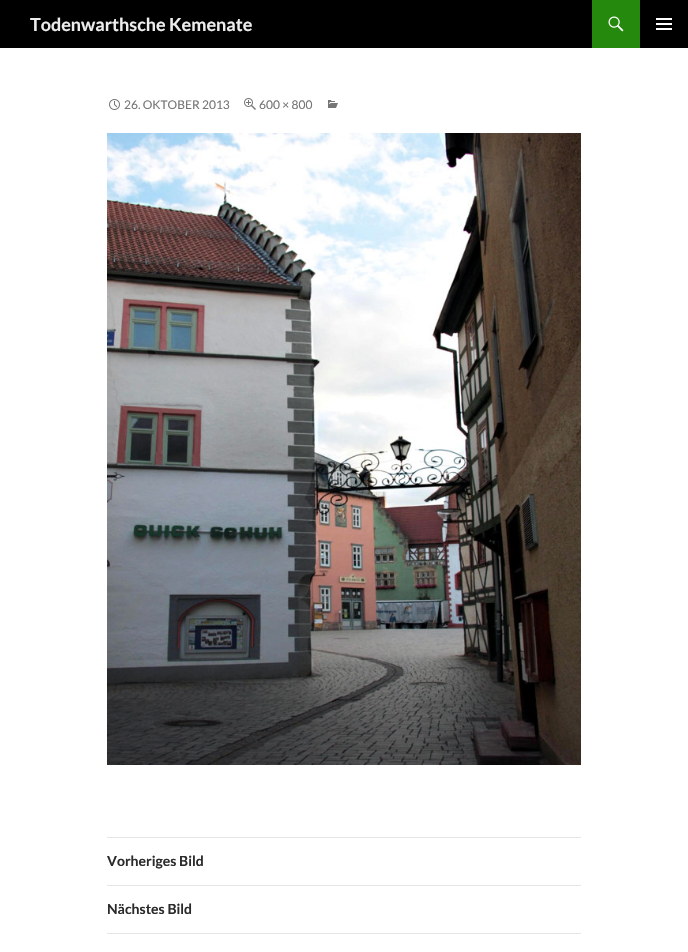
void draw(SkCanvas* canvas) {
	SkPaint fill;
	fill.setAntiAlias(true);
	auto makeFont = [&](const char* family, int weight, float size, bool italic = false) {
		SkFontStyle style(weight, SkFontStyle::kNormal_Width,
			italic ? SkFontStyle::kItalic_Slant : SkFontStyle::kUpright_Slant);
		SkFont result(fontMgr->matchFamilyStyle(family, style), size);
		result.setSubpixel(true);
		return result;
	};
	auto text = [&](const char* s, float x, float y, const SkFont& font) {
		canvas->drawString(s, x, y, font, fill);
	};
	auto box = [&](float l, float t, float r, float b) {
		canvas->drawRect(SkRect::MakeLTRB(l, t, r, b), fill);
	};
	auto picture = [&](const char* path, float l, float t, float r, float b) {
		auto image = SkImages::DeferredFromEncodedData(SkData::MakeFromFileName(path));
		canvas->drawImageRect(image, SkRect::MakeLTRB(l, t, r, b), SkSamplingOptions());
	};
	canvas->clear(0xFFFFFFFF);
	fill.setColor(0xFF000000);
	box(0, 0, 688, 48);
	fill.setColor(0xFF24890D);
	box(592, 0, 640, 48);
	picture("image0.png", 608, 16, 624, 32);
	picture("image1.png", 656, 18, 672, 30);
	picture("image2.png", 109, 99, 120, 110);
	picture("image3.png", 244, 98, 256, 110);
	picture("image4.png", 328, 100, 338, 108);
	picture("image5.png", 107, 133, 581, 765);
	fill.setColor(0xFFE6E6E6);
	box(107, 837, 581, 838);
	box(107, 885, 581, 886);
	box(107, 933, 581, 934);
	auto font1 = makeFont("Lato", 700, 18);
	fill.setColor(0xFFEDEDED);
	text("Todenwarthsche Kemenate", 30, 31, font1);
	auto font2 = makeFont("Lato", 400, 12);
	fill.setColor(0xFF767676);
	text("26. OKTOBER 2013", 124, 109, font2);
	text("600 × 800", 259, 109, font2);
	auto font3 = makeFont("Lato", 700, 14);
	fill.setColor(0xFF2B2B2B);
	text("Vorheriges Bild", 107, 866, font3);
	text("Nächstes Bild", 107, 914, font3);
}
